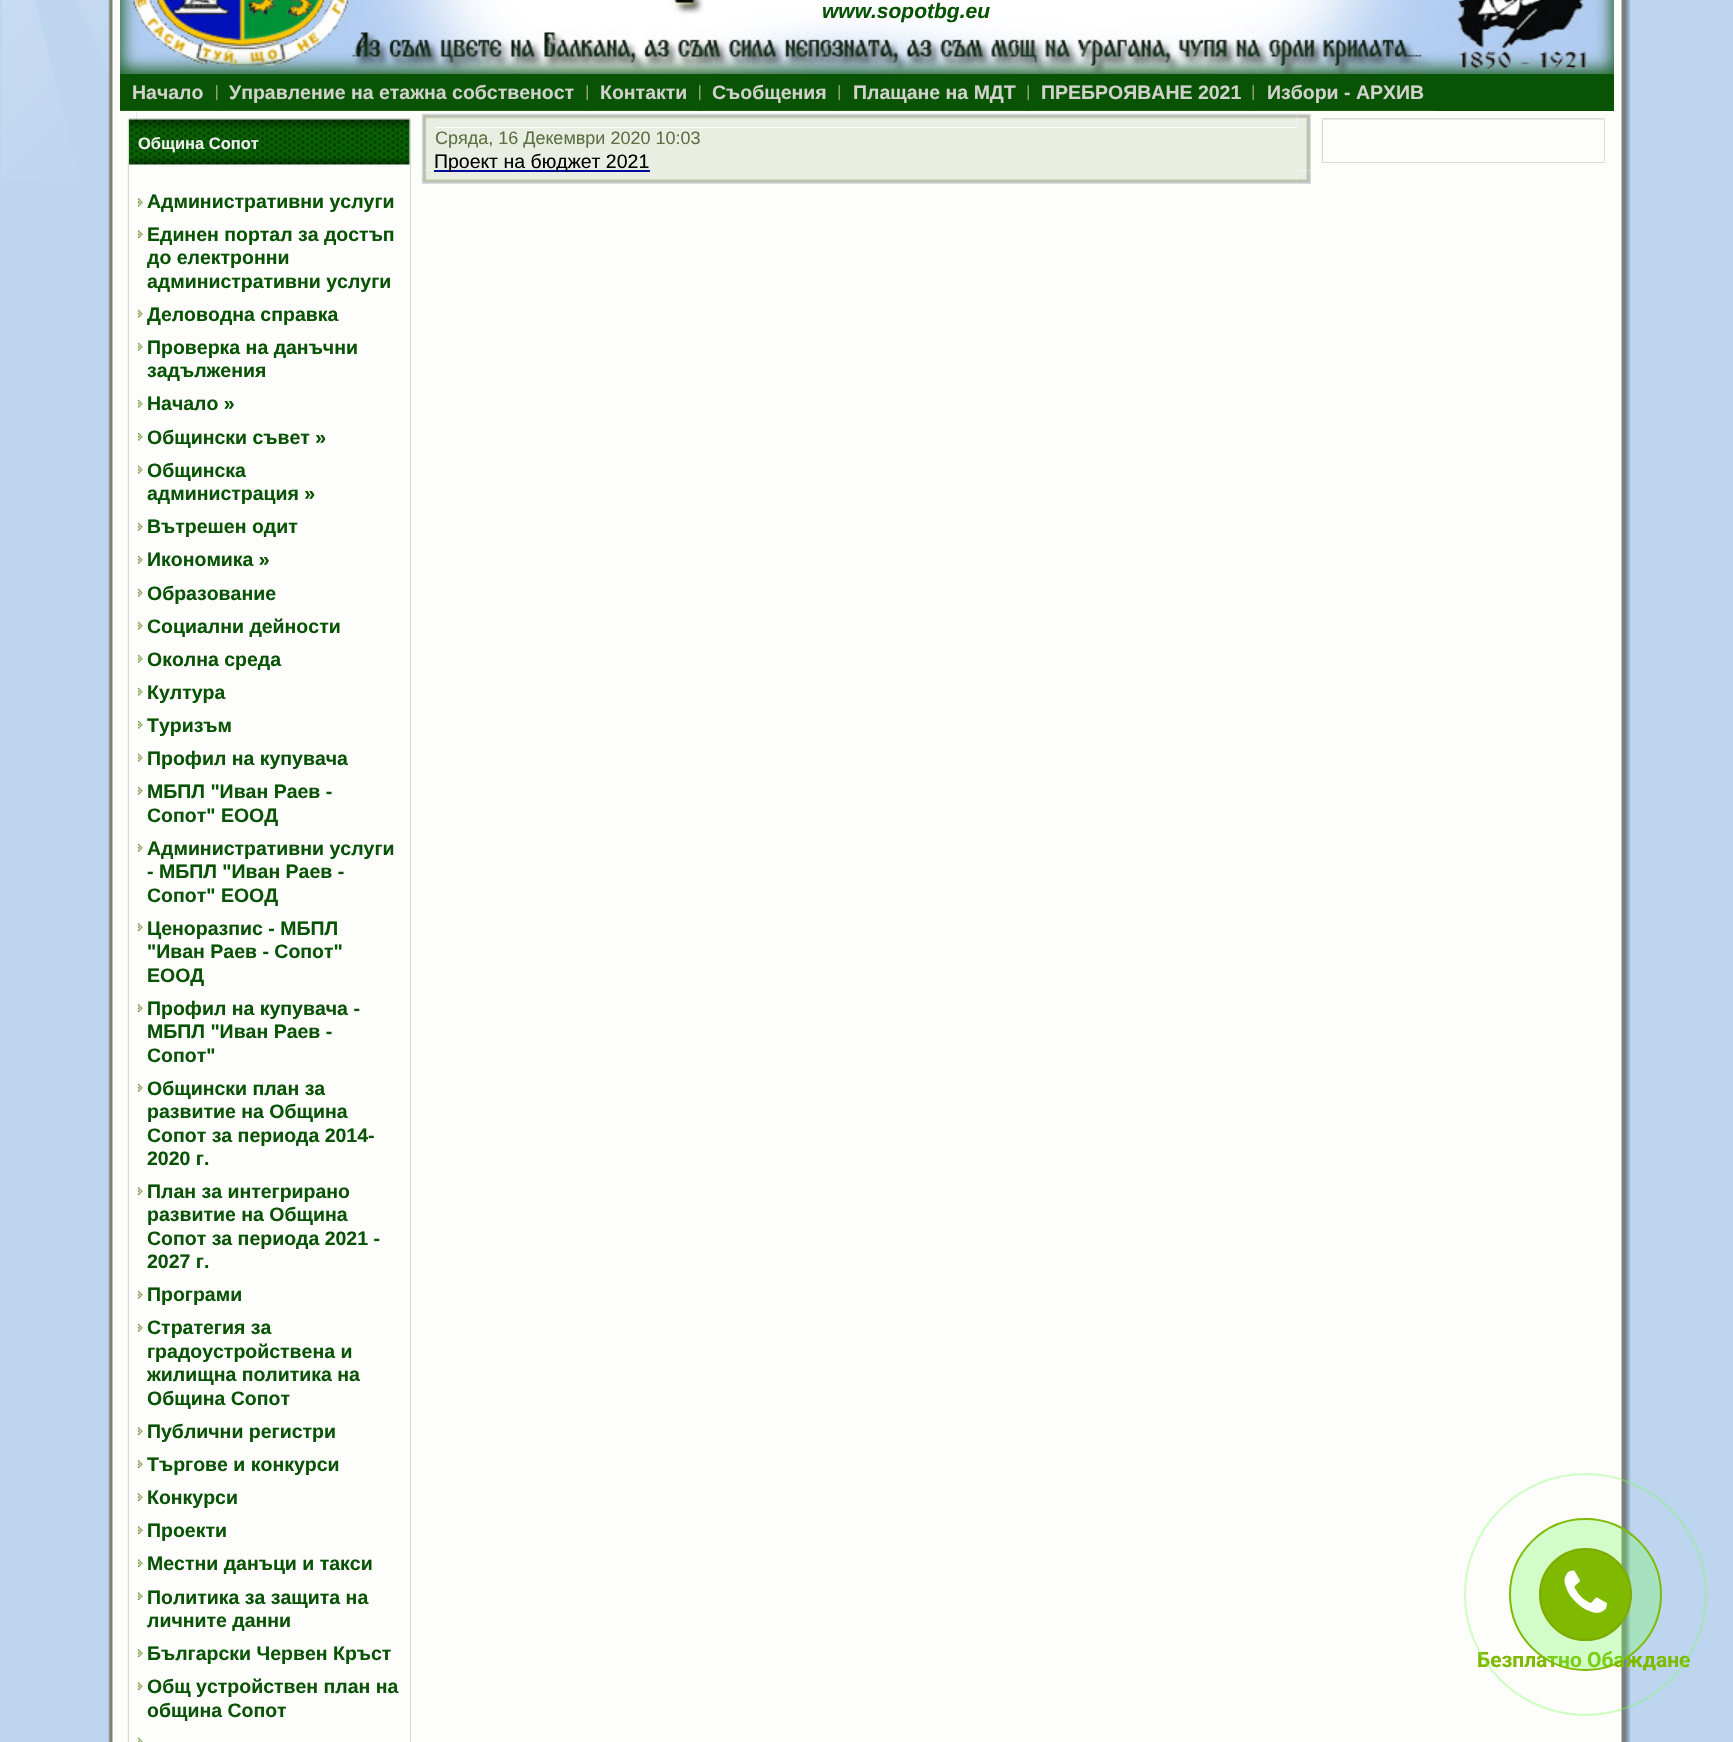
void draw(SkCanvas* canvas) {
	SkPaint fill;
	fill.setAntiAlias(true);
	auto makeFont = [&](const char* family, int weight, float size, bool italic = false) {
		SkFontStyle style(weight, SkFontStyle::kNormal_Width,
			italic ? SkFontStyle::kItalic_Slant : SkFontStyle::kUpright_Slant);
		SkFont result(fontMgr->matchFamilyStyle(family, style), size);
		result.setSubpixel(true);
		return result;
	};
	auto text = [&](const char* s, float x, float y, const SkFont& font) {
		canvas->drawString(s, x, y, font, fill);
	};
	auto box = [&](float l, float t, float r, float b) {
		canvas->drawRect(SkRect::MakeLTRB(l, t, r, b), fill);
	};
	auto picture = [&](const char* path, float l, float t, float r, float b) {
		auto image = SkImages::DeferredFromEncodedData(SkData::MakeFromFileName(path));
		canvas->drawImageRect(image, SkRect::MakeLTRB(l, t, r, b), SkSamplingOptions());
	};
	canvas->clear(0xFFBDD5EF);
	picture("image0.png", 1, 0, 137, 179);
	picture("image1.png", 108, 0, 137, 1742);
	picture("image34.png", 1598, 0, 1631, 1742);
	picture("image2.png", 120, 0, 1614, 74);
	fill.setColor(0xFF085304);
	box(120, 74, 1614, 111);
	fill.setColor(0xFF1F620C);
	box(120, 110, 216, 111);
	picture("image3.png", 216, 84, 218, 101);
	picture("image4.png", 217, 110, 587, 111);
	picture("image5.png", 586, 84, 588, 101);
	box(588, 110, 699, 111);
	picture("image3.png", 699, 84, 701, 101);
	picture("image6.png", 700, 110, 839, 111);
	picture("image5.png", 838, 84, 840, 101);
	picture("image7.png", 840, 110, 1028, 111);
	picture("image5.png", 1027, 84, 1029, 101);
	picture("image8.png", 1029, 110, 1253, 111);
	picture("image5.png", 1252, 84, 1254, 101);
	picture("image9.png", 1254, 110, 1436, 111);
	picture("image10.png", 127, 118, 129, 120);
	fill.setColor(0xFFFDFDFC);
	box(137, 111, 1598, 1742);
	picture("image13.png", 409, 118, 411, 120);
	picture("image11.png", 129, 118, 410, 120);
	picture("image12.png", 127, 119, 129, 1742);
	picture("image14.png", 409, 119, 411, 1742);
	box(136, 120, 410, 1742);
	picture("image15.png", 129, 119, 410, 165);
	picture("image16.png", 138, 198, 143, 207);
	picture("image17.png", 138, 230, 143, 238);
	picture("image18.png", 138, 309, 143, 318);
	picture("image18.png", 138, 342, 143, 351);
	picture("image18.png", 138, 399, 143, 408);
	picture("image18.png", 138, 432, 143, 441);
	picture("image18.png", 138, 465, 143, 474);
	picture("image18.png", 138, 522, 143, 531);
	picture("image18.png", 138, 555, 143, 564);
	picture("image18.png", 138, 588, 143, 597);
	picture("image18.png", 138, 621, 143, 630);
	picture("image18.png", 138, 654, 143, 663);
	picture("image18.png", 138, 687, 143, 696);
	picture("image18.png", 138, 720, 143, 729);
	picture("image18.png", 138, 753, 143, 762);
	picture("image18.png", 138, 786, 143, 795);
	picture("image18.png", 138, 843, 143, 852);
	picture("image17.png", 138, 923, 143, 931);
	picture("image17.png", 138, 1004, 143, 1012);
	picture("image18.png", 138, 1083, 143, 1092);
	picture("image17.png", 138, 1187, 143, 1195);
	picture("image18.png", 138, 1290, 143, 1299);
	picture("image18.png", 138, 1323, 143, 1332);
	picture("image17.png", 138, 1427, 143, 1435);
	picture("image17.png", 138, 1460, 143, 1468);
	picture("image17.png", 138, 1493, 143, 1501);
	picture("image17.png", 138, 1526, 143, 1534);
	picture("image17.png", 138, 1559, 143, 1567);
	picture("image17.png", 138, 1592, 143, 1600);
	picture("image17.png", 138, 1649, 143, 1657);
	picture("image17.png", 138, 1682, 143, 1690);
	picture("image19.png", 138, 1737, 143, 1742);
	picture("image20.png", 421, 113, 435, 127);
	picture("image22.png", 1297, 113, 1311, 127);
	picture("image21.png", 435, 113, 1298, 127);
	picture("image25.png", 421, 170, 435, 184);
	picture("image23.png", 421, 127, 435, 171);
	picture("image27.png", 1297, 170, 1311, 184);
	picture("image24.png", 1297, 127, 1311, 171);
	fill.setColor(0xFFE9EEE3);
	box(435, 128, 1298, 171);
	picture("image26.png", 435, 171, 1298, 184);
	fill.setColor(0xFF030D9B);
	box(434, 170, 650, 172);
	picture("image10.png", 1321, 118, 1323, 120);
	picture("image13.png", 1603, 118, 1605, 120);
	picture("image28.png", 1323, 118, 1604, 120);
	picture("image31.png", 1321, 161, 1323, 163);
	picture("image29.png", 1321, 119, 1323, 162);
	picture("image32.png", 1603, 161, 1605, 163);
	picture("image30.png", 1603, 119, 1605, 162);
	fill.setColor(0xFFFDFDFC);
	box(1603, 120, 1604, 162);
	picture("image33.png", 1323, 162, 1604, 163);
	auto font1 = makeFont("Liberation Sans", 700, 21, true);
	fill.setColor(0xFF085304);
	text("www.sopotbg.eu", 822, 18, font1);
	auto font2 = makeFont("Liberation Sans", 700, 19.5f);
	fill.setColor(0xFFD0D2CB);
	text("Начало", 132, 99, font2);
	text("Управление на етажна собственост", 229, 99, font2);
	text("Контакти", 600, 99, font2);
	text("Съобщения", 712, 99, font2);
	text("Плащане на МДТ", 853, 99, font2);
	text("ПРЕБРОЯВАНЕ 2021", 1041, 99, font2);
	text("Избори - АРХИВ", 1267, 99, font2);
	auto font3 = makeFont("Liberation Sans", 700, 16.5f);
	fill.setColor(0xFFEEEEEC);
	text("Община Сопот", 138, 149, font3);
	fill.setColor(0xFF085304);
	text("Административни услуги", 147, 208, font2);
	text("Единен портал за достъп", 147, 241, font2);
	text("до електронни", 147, 264, font2);
	text("административни услуги", 147, 288, font2);
	text("Деловодна справка", 147, 321, font2);
	text("Проверка на данъчни", 147, 354, font2);
	text("задължения", 147, 377, font2);
	text("Начало »", 147, 410, font2);
	text("Общински съвет »", 147, 444, font2);
	text("Общинска", 147, 477, font2);
	text("администрация »", 147, 500, font2);
	text("Вътрешен одит", 147, 533, font2);
	text("Икономика »", 147, 566, font2);
	text("Образование", 147, 600, font2);
	text("Социални дейности", 147, 633, font2);
	text("Околна среда", 147, 666, font2);
	text("Култура", 147, 699, font2);
	text("Туризъм", 147, 732, font2);
	text("Профил на купувача", 147, 765, font2);
	text("МБПЛ \"Иван Раев -", 147, 798, font2);
	text("Сопот\" ЕООД", 147, 822, font2);
	text("Административни услуги", 147, 855, font2);
	text("- МБПЛ \"Иван Раев -", 147, 878, font2);
	text("Сопот\" ЕООД", 147, 902, font2);
	text("Ценоразпис - МБПЛ", 147, 935, font2);
	text("\"Иван Раев - Сопот\"", 147, 958, font2);
	text("ЕООД", 147, 982, font2);
	text("Профил на купувача -", 147, 1015, font2);
	text("МБПЛ \"Иван Раев -", 147, 1038, font2);
	text("Сопот\"", 147, 1062, font2);
	text("Общински план за", 147, 1095, font2);
	text("развитие на Община", 147, 1118, font2);
	text("Сопот за периода 2014-", 147, 1142, font2);
	text("2020 г.", 147, 1165, font2);
	text("План за интегрирано", 147, 1198, font2);
	text("развитие на Община", 147, 1221, font2);
	text("Сопот за периода 2021 -", 147, 1245, font2);
	text("2027 г.", 147, 1268, font2);
	text("Програми", 147, 1301, font2);
	text("Стратегия за", 147, 1334, font2);
	text("градоустройствена и", 147, 1358, font2);
	text("жилищна политика на", 147, 1381, font2);
	text("Община Сопот", 147, 1405, font2);
	text("Публични регистри", 147, 1438, font2);
	text("Търгове и конкурси", 147, 1471, font2);
	text("Конкурси", 147, 1504, font2);
	text("Проекти", 147, 1537, font2);
	text("Местни данъци и такси", 147, 1570, font2);
	text("Политика за защита на", 147, 1604, font2);
	text("личните данни", 147, 1627, font2);
	text("Български Червен Кръст", 147, 1660, font2);
	text("Общ устройствен план на", 147, 1693, font2);
	text("община Сопот", 147, 1717, font2);
	auto font4 = makeFont("Liberation Sans", 400, 18);
	fill.setColor(0xFF5E6F44);
	text("Сряда, 16 Декември 2020 10:03", 435, 144, font4);
	auto font5 = makeFont("Liberation Sans", 400, 19.5f);
	fill.setColor(0xFF000000);
	text("Проект на бюджет 2021", 434, 168, font5);
	auto font6 = makeFont("Roboto", 700, 21);
	fill.setColor(0xFF7FBA00);
	text("Безплатно Обаждане", 1477, 1667, font6);
	fill.setStyle(SkPaint::kStroke_Style);
	fill.setStrokeWidth(2);
	fill.setColor(0x5975FF50);
	canvas->drawCircle(1585.5f, 1594.5f, 120.5f, fill);
	fill.setStyle(SkPaint::kFill_Style);
	fill.setColor(0x4D75FF50);
	canvas->drawCircle(1585.5f, 1594.5f, 75.5f, fill);
	fill.setStyle(SkPaint::kStroke_Style);
	fill.setColor(0xFF7FBA00);
	canvas->drawCircle(1585.5f, 1594.5f, 75.5f, fill);
	fill.setStyle(SkPaint::kFill_Style);
	canvas->drawCircle(1585.5f, 1594.5f, 45.5f, fill);
	fill.setStyle(SkPaint::kStroke_Style);
	fill.setColor(0xFF7FAB00);
	canvas->drawCircle(1585.5f, 1594.5f, 45.5f, fill);
	picture("image35.png", 1564, 1570, 1607, 1613);
}
